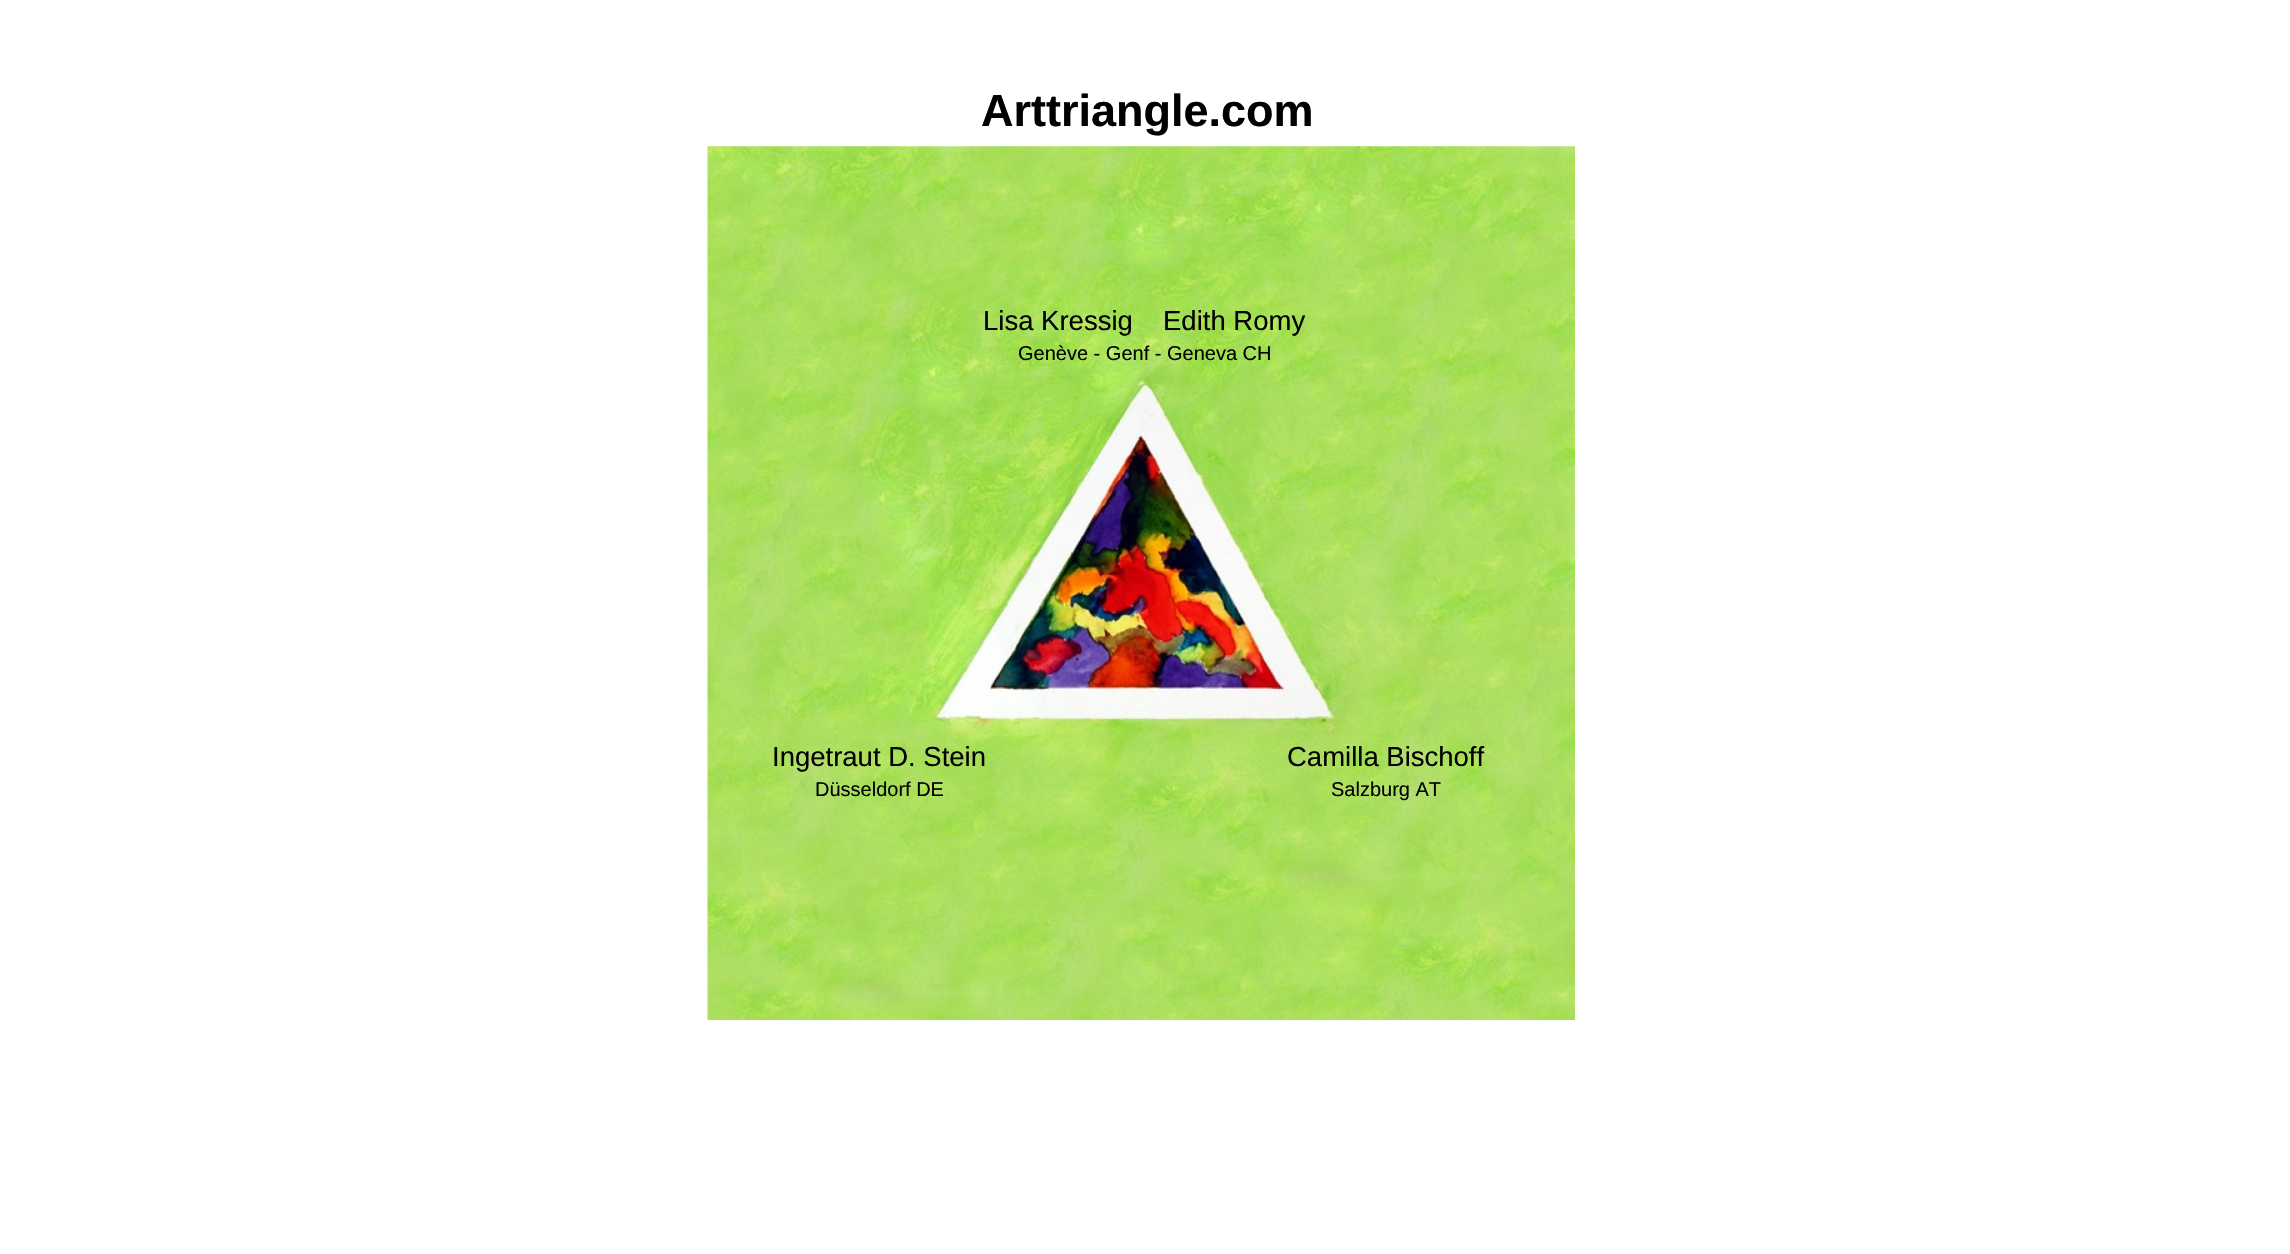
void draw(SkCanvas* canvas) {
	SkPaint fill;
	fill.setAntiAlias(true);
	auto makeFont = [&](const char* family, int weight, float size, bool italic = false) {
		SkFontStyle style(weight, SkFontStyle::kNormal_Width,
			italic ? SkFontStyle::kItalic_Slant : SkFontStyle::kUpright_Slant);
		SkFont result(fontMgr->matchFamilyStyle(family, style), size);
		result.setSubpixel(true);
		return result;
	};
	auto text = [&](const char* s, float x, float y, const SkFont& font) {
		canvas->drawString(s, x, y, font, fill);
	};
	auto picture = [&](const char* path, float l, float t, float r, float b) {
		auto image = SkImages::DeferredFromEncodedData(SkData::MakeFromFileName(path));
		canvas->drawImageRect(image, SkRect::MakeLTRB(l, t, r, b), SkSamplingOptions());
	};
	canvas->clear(0xFFFFFFFF);
	picture("image0.png", 707, 146, 1575, 1020);
	auto font1 = makeFont("Liberation Sans", 700, 45);
	fill.setColor(0xFF000000);
	text("Arttriangle.com", 981, 126, font1);
	auto font2 = makeFont("Liberation Sans", 400, 27.5f);
	text("Lisa Kressig", 983, 330, font2);
	text("Edith Romy", 1163, 330, font2);
	auto font3 = makeFont("Liberation Sans", 400, 20);
	text("Genève - Genf - Geneva CH", 1018, 360, font3);
	text("Ingetraut D. Stein", 772, 766, font2);
	text("Düsseldorf DE", 815, 796, font3);
	text("Camilla Bischoff", 1287, 766, font2);
	text("Salzburg AT", 1331, 796, font3);
}
